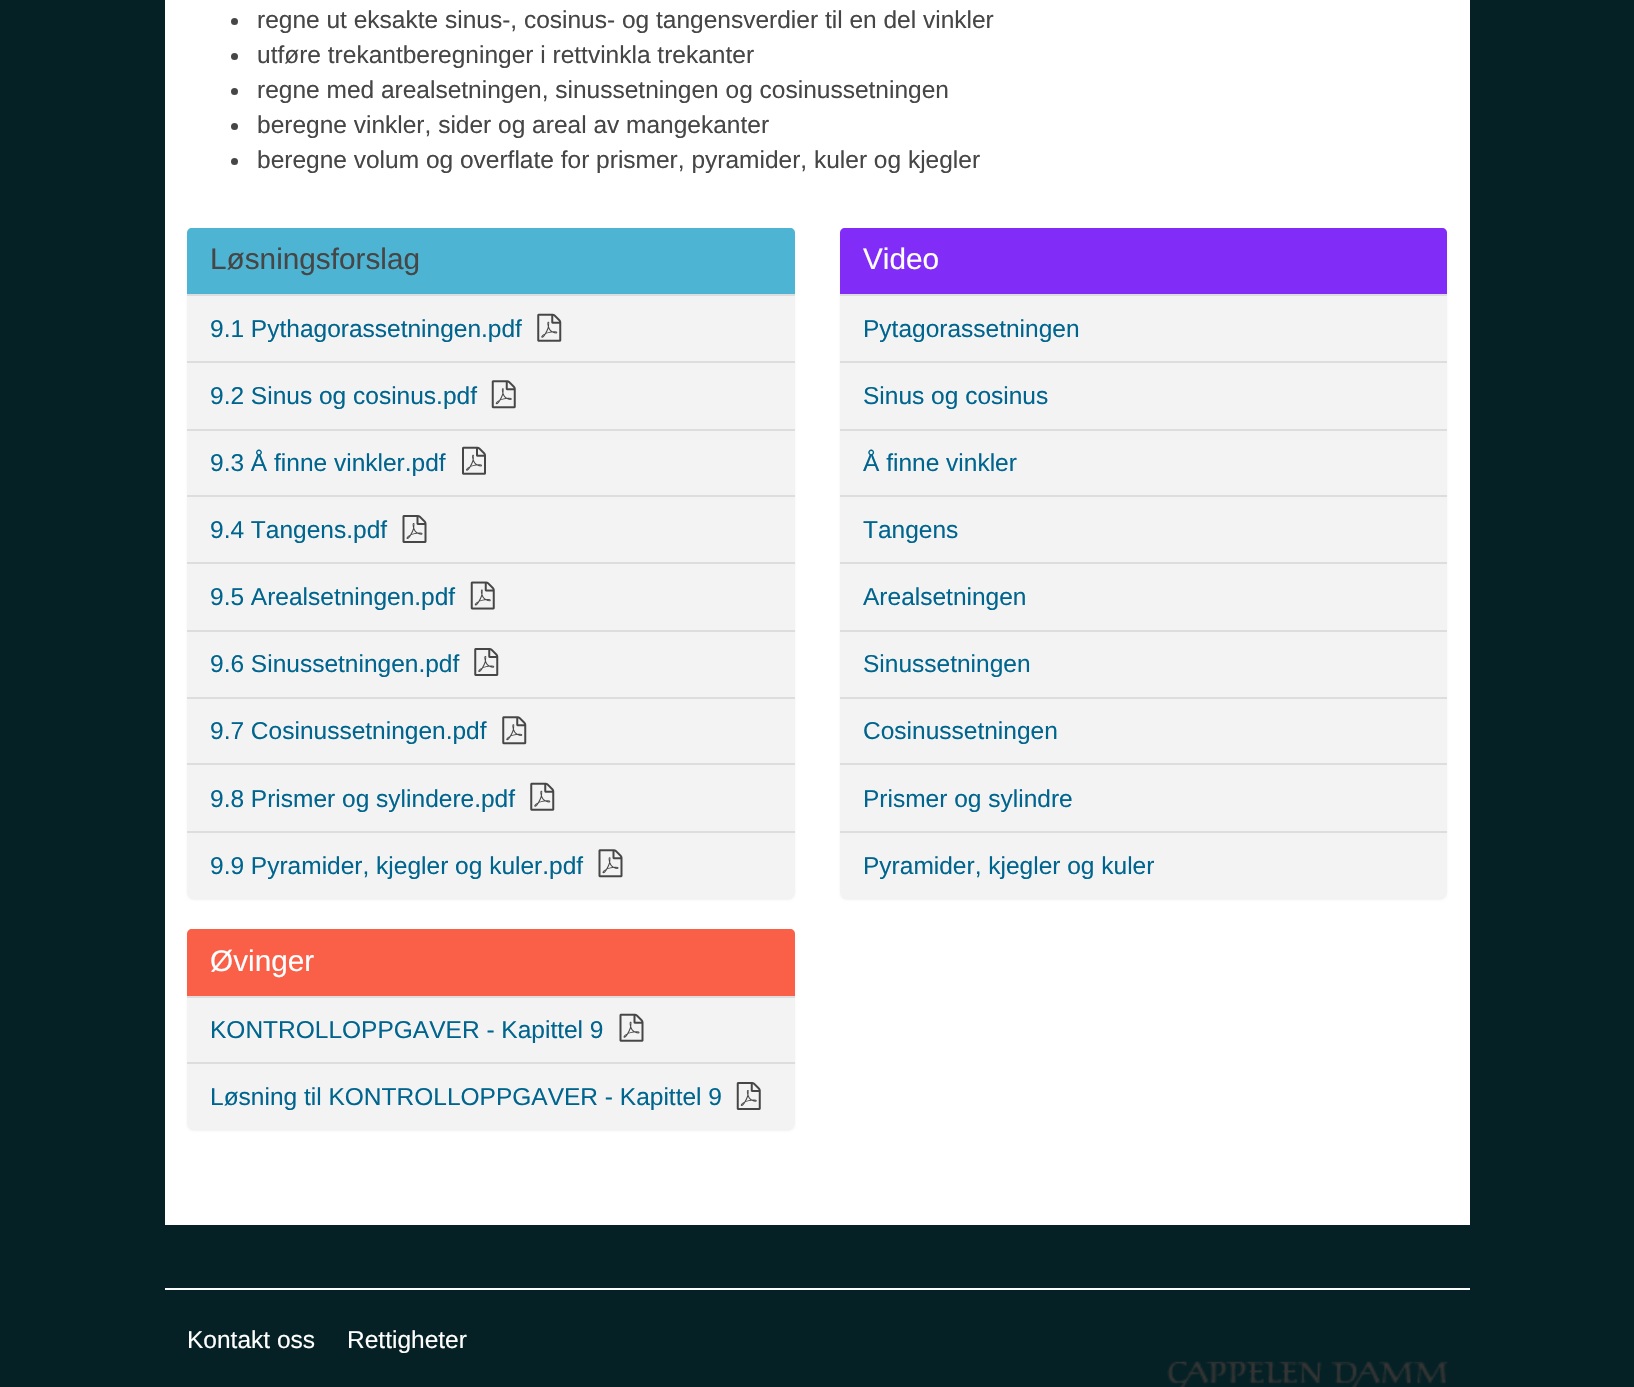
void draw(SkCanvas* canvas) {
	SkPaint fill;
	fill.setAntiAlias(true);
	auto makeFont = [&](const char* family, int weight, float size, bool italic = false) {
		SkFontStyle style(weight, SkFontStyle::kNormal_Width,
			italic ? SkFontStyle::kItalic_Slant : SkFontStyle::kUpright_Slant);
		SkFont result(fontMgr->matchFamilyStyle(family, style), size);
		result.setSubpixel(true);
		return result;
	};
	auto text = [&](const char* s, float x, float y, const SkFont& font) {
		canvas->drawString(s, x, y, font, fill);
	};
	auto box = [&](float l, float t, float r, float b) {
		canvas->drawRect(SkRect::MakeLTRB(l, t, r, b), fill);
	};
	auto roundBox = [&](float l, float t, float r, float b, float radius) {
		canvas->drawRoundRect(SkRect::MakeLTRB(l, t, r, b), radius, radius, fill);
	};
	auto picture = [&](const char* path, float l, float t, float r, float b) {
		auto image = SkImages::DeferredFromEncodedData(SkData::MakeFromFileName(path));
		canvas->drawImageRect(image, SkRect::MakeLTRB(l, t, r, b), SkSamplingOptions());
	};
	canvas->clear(0xFF052125);
	fill.setColor(0xFFFFFFFF);
	box(165, 0, 1470, 1225);
	fill.setColor(0xFF464646);
	canvas->drawCircle(234.5f, 21.5f, 3.5f, fill);
	canvas->drawCircle(234.5f, 56.5f, 3.5f, fill);
	canvas->drawCircle(234.5f, 91.5f, 3.5f, fill);
	canvas->drawCircle(234.5f, 126.5f, 3.5f, fill);
	canvas->drawCircle(234.5f, 161.5f, 3.5f, fill);
	fill.setColor(0x0D000000);
	fill.setMaskFilter(SkMaskFilter::MakeBlur(kNormal_SkBlurStyle, 1));
	canvas->drawRoundRect(SkRect::MakeLTRB(187, 229, 795, 900), 7, 7, fill);
	fill.setMaskFilter(nullptr);
	fill.setColor(0xFFF3F3F3);
	roundBox(187, 228, 795, 898, 7);
	fill.setColor(0xFF4DB4D4);
	canvas->drawPath(SkPathBuilder().moveTo(192, 228).lineTo(790, 228).cubicTo(793, 228, 795, 230, 795, 233).lineTo(795, 296).lineTo(187, 296).lineTo(187, 233).cubicTo(187, 230, 189, 228, 192, 228).close().detach(), fill);
	fill.setColor(0xFFDDDDDD);
	box(187, 294, 795, 296);
	box(187, 361, 795, 363);
	picture("image0.png", 537, 313, 562, 342);
	box(187, 429, 795, 431);
	picture("image1.png", 491, 380, 516, 409);
	box(187, 495, 795, 497);
	picture("image2.png", 462, 446, 486, 475);
	box(187, 562, 795, 564);
	picture("image3.png", 402, 515, 427, 543);
	box(187, 630, 795, 632);
	picture("image4.png", 470, 581, 495, 610);
	box(187, 697, 795, 699);
	picture("image5.png", 474, 648, 499, 676);
	box(187, 763, 795, 765);
	picture("image6.png", 502, 716, 527, 745);
	box(187, 831, 795, 833);
	picture("image0.png", 530, 782, 555, 811);
	picture("image7.png", 598, 849, 623, 878);
	fill.setColor(0x0D000000);
	fill.setMaskFilter(SkMaskFilter::MakeBlur(kNormal_SkBlurStyle, 1));
	canvas->drawRoundRect(SkRect::MakeLTRB(840, 229, 1447, 900), 7, 7, fill);
	fill.setMaskFilter(nullptr);
	fill.setColor(0xFFF3F3F3);
	roundBox(840, 228, 1447, 898, 7);
	fill.setColor(0xFF822CF8);
	canvas->drawPath(SkPathBuilder().moveTo(845, 228).lineTo(1442, 228).cubicTo(1445, 228, 1447, 230, 1447, 233).lineTo(1447, 296).lineTo(840, 296).lineTo(840, 233).cubicTo(840, 230, 842, 228, 845, 228).close().detach(), fill);
	fill.setColor(0xFFDDDDDD);
	box(840, 294, 1447, 296);
	box(840, 361, 1447, 363);
	box(840, 429, 1447, 431);
	box(840, 495, 1447, 497);
	box(840, 562, 1447, 564);
	box(840, 630, 1447, 632);
	box(840, 697, 1447, 699);
	box(840, 763, 1447, 765);
	box(840, 831, 1447, 833);
	fill.setColor(0x0D000000);
	fill.setMaskFilter(SkMaskFilter::MakeBlur(kNormal_SkBlurStyle, 1));
	canvas->drawRoundRect(SkRect::MakeLTRB(187, 931, 795, 1131), 7, 7, fill);
	fill.setMaskFilter(nullptr);
	fill.setColor(0xFFF3F3F3);
	roundBox(187, 929, 795, 1129, 7);
	fill.setColor(0xFFFA6048);
	canvas->drawPath(SkPathBuilder().moveTo(192, 929).lineTo(790, 929).cubicTo(793, 929, 795, 931, 795, 934).lineTo(795, 998).lineTo(187, 998).lineTo(187, 934).cubicTo(187, 931, 189, 929, 192, 929).close().detach(), fill);
	fill.setColor(0xFFDDDDDD);
	box(187, 996, 795, 998);
	box(187, 1062, 795, 1064);
	picture("image8.png", 619, 1013, 644, 1042);
	picture("image9.png", 736, 1082, 761, 1110);
	fill.setColor(0xFFFBFBFB);
	box(165, 1288, 1470, 1290);
	picture("image10.png", 1167, 1361, 1448, 1387);
	auto font1 = makeFont("Liberation Sans", 400, 24.5f);
	fill.setColor(0xFF464646);
	text("regne ut eksakte sinus-, cosinus- og tangensverdier til en del vinkler", 257, 28, font1);
	text("utføre trekantberegninger i rettvinkla trekanter", 257, 63, font1);
	text("regne med arealsetningen, sinussetningen og cosinussetningen", 257, 98, font1);
	text("beregne vinkler, sider og areal av mangekanter", 257, 133, font1);
	text("beregne volum og overflate for prismer, pyramider, kuler og kjegler", 257, 168, font1);
	auto font2 = makeFont("Liberation Sans", 400, 29.75f);
	text("Løsningsforslag", 210, 269, font2);
	fill.setColor(0xFF00658E);
	text("9.1 Pythagorassetningen.pdf", 210, 337, font1);
	text("9.2 Sinus og cosinus.pdf", 210, 404, font1);
	text("9.3 Å finne vinkler.pdf", 210, 471, font1);
	text("9.4 Tangens.pdf", 210, 538, font1);
	text("9.5 Arealsetningen.pdf", 210, 605, font1);
	text("9.6 Sinussetningen.pdf", 210, 672, font1);
	text("9.7 Cosinussetningen.pdf", 210, 739, font1);
	text("9.8 Prismer og sylindere.pdf", 210, 807, font1);
	text("9.9 Pyramider, kjegler og kuler.pdf", 210, 874, font1);
	fill.setColor(0xFFFFFFFF);
	text("Video", 863, 269, font2);
	fill.setColor(0xFF00658E);
	text("Pytagorassetningen", 863, 337, font1);
	text("Sinus og cosinus", 863, 404, font1);
	text("Å finne vinkler", 863, 471, font1);
	text("Tangens", 863, 538, font1);
	text("Arealsetningen", 863, 605, font1);
	text("Sinussetningen", 863, 672, font1);
	text("Cosinussetningen", 863, 739, font1);
	text("Prismer og sylindre", 863, 807, font1);
	text("Pyramider, kjegler og kuler", 863, 874, font1);
	fill.setColor(0xFFFFFFFF);
	text("Øvinger", 210, 971, font2);
	fill.setColor(0xFF00658E);
	text("KONTROLLOPPGAVER - Kapittel 9", 210, 1038, font1);
	text("Løsning til KONTROLLOPPGAVER - Kapittel 9", 210, 1105, font1);
	fill.setColor(0xFFFFFFFF);
	text("Kontakt oss", 187, 1348, font1);
	text("Rettigheter", 347, 1348, font1);
}
